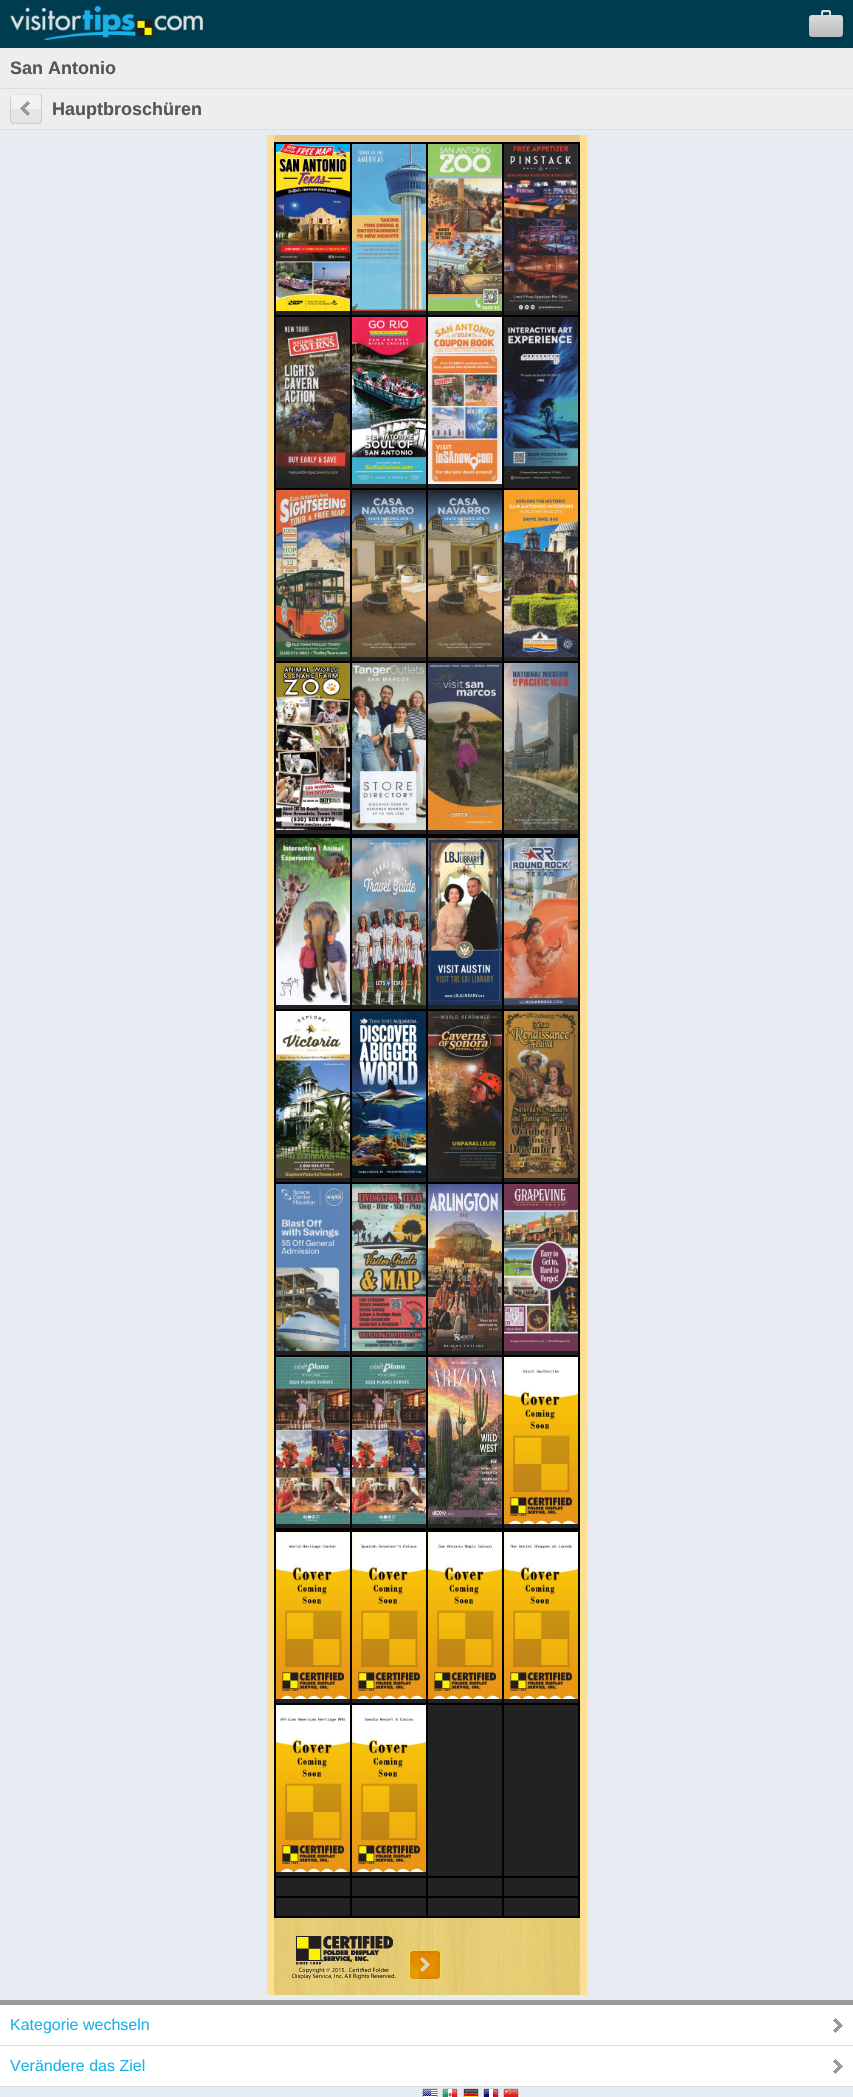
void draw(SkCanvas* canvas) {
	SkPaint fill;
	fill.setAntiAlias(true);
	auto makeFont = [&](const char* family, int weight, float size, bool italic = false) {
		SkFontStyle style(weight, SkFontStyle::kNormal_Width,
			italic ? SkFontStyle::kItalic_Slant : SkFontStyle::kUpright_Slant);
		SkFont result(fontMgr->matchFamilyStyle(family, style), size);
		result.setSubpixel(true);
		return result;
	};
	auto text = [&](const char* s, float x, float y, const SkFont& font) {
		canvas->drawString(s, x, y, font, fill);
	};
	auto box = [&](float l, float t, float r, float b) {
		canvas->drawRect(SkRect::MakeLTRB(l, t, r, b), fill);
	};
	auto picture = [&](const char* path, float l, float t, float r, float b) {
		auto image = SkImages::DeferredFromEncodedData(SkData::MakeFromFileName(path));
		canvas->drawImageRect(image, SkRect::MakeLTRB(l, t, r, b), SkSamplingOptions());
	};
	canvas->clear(0xFFE7ECF2);
	fill.setColor(0xFF003C50);
	box(0, 0, 853, 48);
	picture("image0.png", 10, 6, 203, 40);
	picture("image1.png", 809, 10, 843, 37);
	fill.setColor(0xFFEEEEEE);
	box(0, 48, 853, 88);
	fill.setColor(0xFFDDDDDD);
	box(0, 88, 853, 89);
	fill.setColor(0xFFEEEEEE);
	box(0, 89, 853, 129);
	fill.setColor(0xFFDDDDDD);
	box(0, 129, 853, 130);
	picture("image2.png", 10, 94, 42, 124);
	fill.setColor(0xFFFCDE94);
	box(267, 135, 274, 1995);
	fill.setColor(0xFFEAC986);
	box(274, 135, 580, 142);
	fill.setColor(0xFFFCDE94);
	box(580, 135, 587, 1995);
	fill.setColor(0xFF000000);
	box(274, 142, 580, 1918);
	fill.setColor(0xFF222222);
	box(276, 311, 350, 315);
	picture("image3.png", 276, 144, 350, 311);
	box(352, 311, 426, 315);
	picture("image4.png", 352, 144, 426, 311);
	box(428, 311, 502, 315);
	picture("image5.png", 428, 144, 502, 311);
	box(504, 311, 578, 315);
	picture("image6.png", 504, 144, 578, 311);
	box(276, 484, 350, 488);
	picture("image7.png", 276, 317, 350, 484);
	box(352, 484, 426, 488);
	picture("image8.png", 352, 317, 426, 484);
	box(428, 484, 502, 488);
	picture("image9.png", 428, 317, 502, 484);
	box(504, 484, 578, 488);
	picture("image10.png", 504, 317, 578, 484);
	box(276, 657, 350, 661);
	picture("image11.png", 276, 490, 350, 657);
	box(352, 657, 426, 661);
	picture("image12.png", 352, 490, 426, 657);
	box(428, 657, 502, 661);
	picture("image12.png", 428, 490, 502, 657);
	box(504, 657, 578, 661);
	picture("image13.png", 504, 490, 578, 657);
	box(276, 830, 350, 834);
	picture("image14.png", 276, 663, 350, 830);
	box(352, 830, 426, 834);
	picture("image15.png", 352, 663, 426, 830);
	box(428, 830, 502, 834);
	picture("image16.png", 428, 663, 502, 830);
	box(504, 830, 578, 834);
	picture("image17.png", 504, 663, 578, 830);
	box(276, 1005, 350, 1009);
	picture("image18.png", 276, 838, 350, 1005);
	box(352, 1005, 426, 1009);
	picture("image19.png", 352, 838, 426, 1005);
	box(428, 1005, 502, 1009);
	picture("image20.png", 428, 838, 502, 1005);
	box(504, 1005, 578, 1009);
	picture("image21.png", 504, 838, 578, 1005);
	box(276, 1178, 350, 1182);
	picture("image22.png", 276, 1011, 350, 1178);
	box(352, 1178, 426, 1182);
	picture("image23.png", 352, 1011, 426, 1178);
	box(428, 1178, 502, 1182);
	picture("image24.png", 428, 1011, 502, 1178);
	box(504, 1178, 578, 1182);
	picture("image25.png", 504, 1011, 578, 1178);
	box(276, 1351, 350, 1355);
	picture("image26.png", 276, 1184, 350, 1351);
	box(352, 1351, 426, 1355);
	picture("image27.png", 352, 1184, 426, 1351);
	box(428, 1351, 502, 1355);
	picture("image28.png", 428, 1184, 502, 1351);
	box(504, 1351, 578, 1355);
	picture("image29.png", 504, 1184, 578, 1351);
	box(276, 1524, 350, 1528);
	picture("image30.png", 276, 1357, 350, 1524);
	box(352, 1524, 426, 1528);
	picture("image31.png", 352, 1357, 426, 1524);
	box(428, 1524, 502, 1528);
	picture("image32.png", 428, 1357, 502, 1524);
	box(504, 1524, 578, 1528);
	picture("image33.png", 504, 1357, 578, 1524);
	box(276, 1699, 350, 1703);
	picture("image34.png", 276, 1532, 350, 1699);
	box(352, 1699, 426, 1703);
	picture("image35.png", 352, 1532, 426, 1699);
	box(428, 1699, 502, 1703);
	picture("image36.png", 428, 1532, 502, 1699);
	box(504, 1699, 578, 1703);
	picture("image37.png", 504, 1532, 578, 1699);
	box(276, 1872, 350, 1876);
	picture("image38.png", 276, 1705, 350, 1872);
	box(352, 1872, 426, 1876);
	picture("image39.png", 352, 1705, 426, 1872);
	box(428, 1705, 502, 1876);
	box(504, 1705, 578, 1876);
	box(276, 1878, 350, 1896);
	box(352, 1878, 426, 1896);
	box(428, 1878, 502, 1896);
	box(504, 1878, 578, 1896);
	box(276, 1898, 350, 1916);
	box(352, 1898, 426, 1916);
	box(428, 1898, 502, 1916);
	box(504, 1898, 578, 1916);
	picture("image40.png", 274, 1918, 580, 1995);
	picture("image41.png", 292, 1936, 396, 1980);
	picture("image42.png", 409, 1950, 441, 1980);
	fill.setColor(0xFF999999);
	box(0, 2000, 853, 2005);
	fill.setColor(0xFFFFFFFF);
	box(0, 2005, 853, 2045);
	fill.setColor(0xFFDDDDDD);
	box(0, 2045, 853, 2046);
	picture("image43.png", 833, 2018, 843, 2033);
	fill.setColor(0xFFFFFFFF);
	box(0, 2046, 853, 2086);
	fill.setColor(0xFFDDDDDD);
	box(0, 2086, 853, 2087);
	picture("image43.png", 833, 2059, 843, 2074);
	picture("image44.png", 422, 2088, 438, 2097);
	picture("image45.png", 442, 2088, 458, 2097);
	picture("image46.png", 463, 2088, 479, 2097);
	picture("image47.png", 483, 2088, 499, 2097);
	picture("image48.png", 503, 2088, 519, 2097);
	auto font1 = makeFont("Liberation Sans", 700, 18);
	fill.setColor(0xFF555555);
	text("San Antonio", 10, 74, font1);
	text("Hauptbroschüren", 52, 115, font1);
	auto font2 = makeFont("Liberation Sans", 400, 16);
	fill.setColor(0xFF1AB3EB);
	text("Kategorie wechseln", 10, 2030, font2);
	text("Verändere das Ziel", 10, 2071, font2);
}
